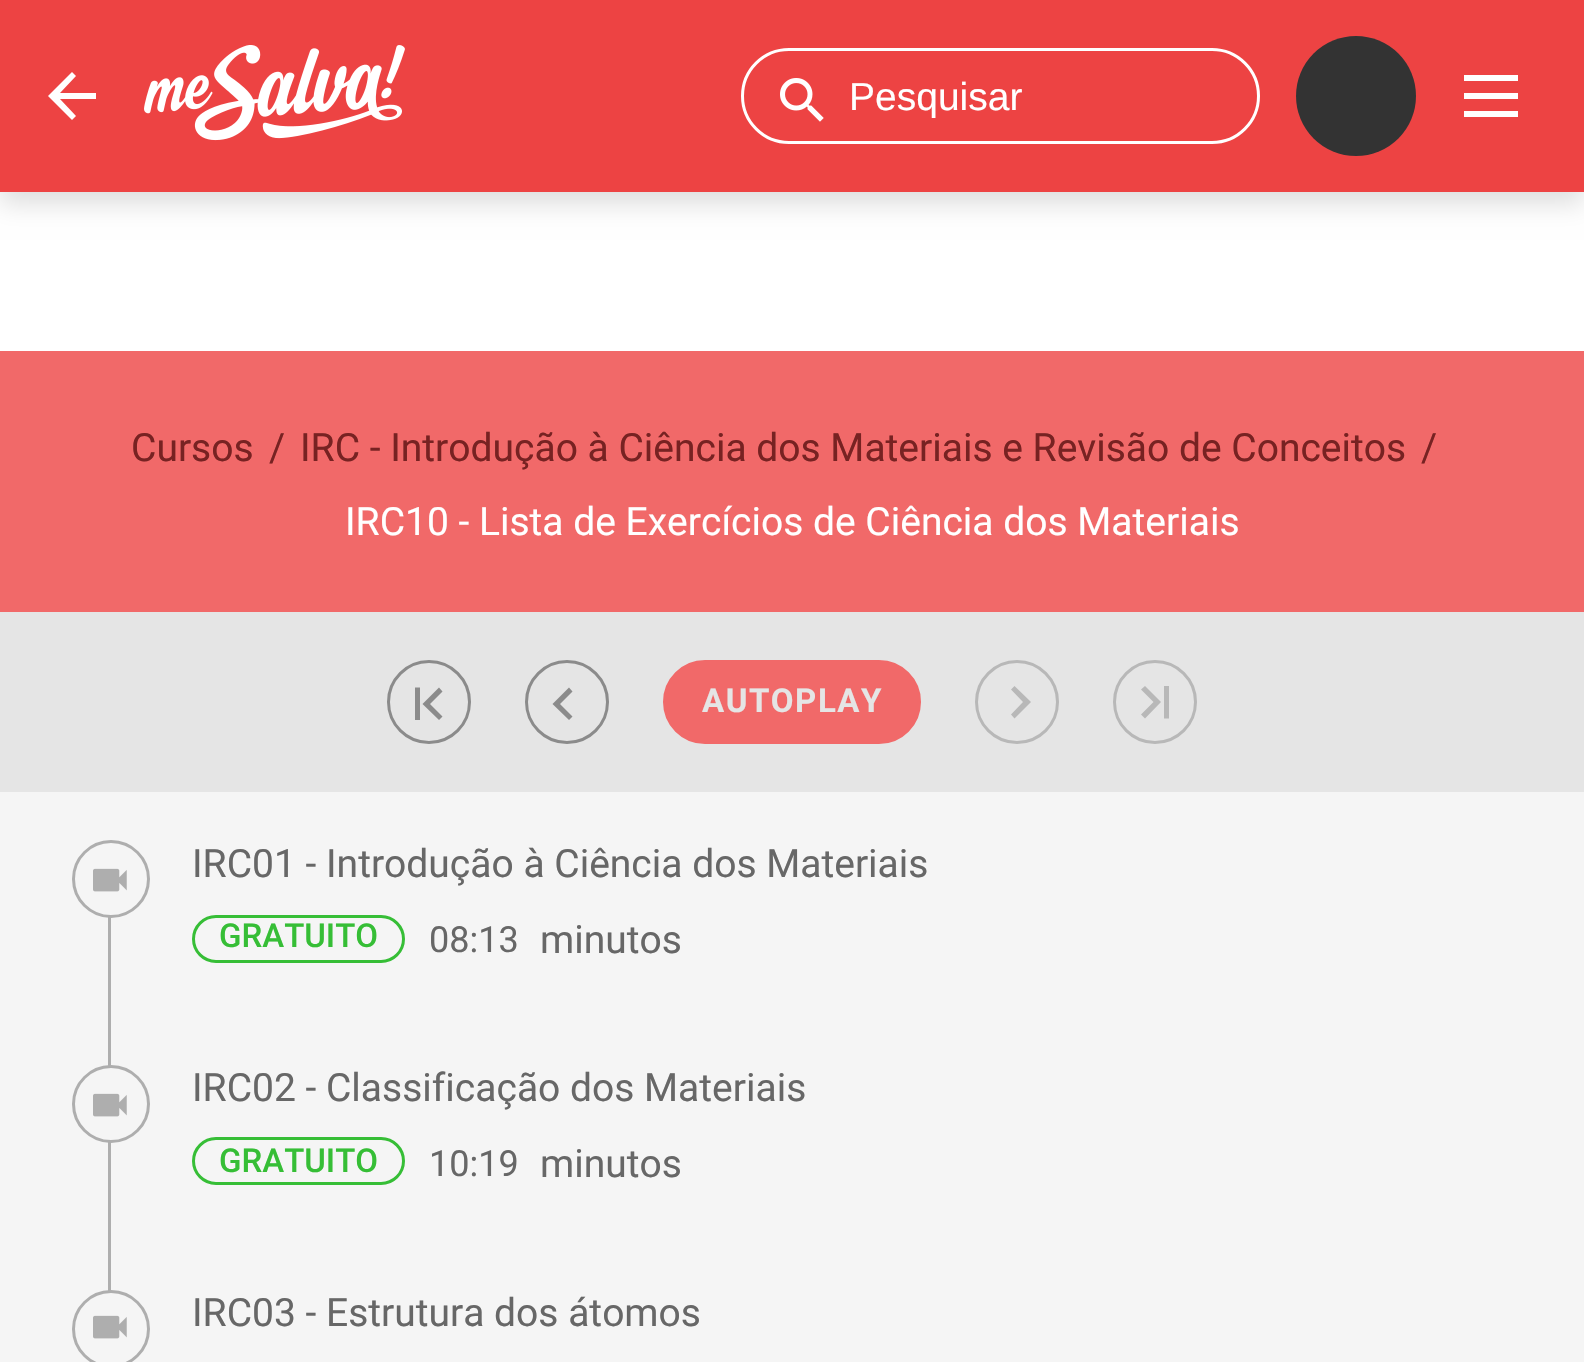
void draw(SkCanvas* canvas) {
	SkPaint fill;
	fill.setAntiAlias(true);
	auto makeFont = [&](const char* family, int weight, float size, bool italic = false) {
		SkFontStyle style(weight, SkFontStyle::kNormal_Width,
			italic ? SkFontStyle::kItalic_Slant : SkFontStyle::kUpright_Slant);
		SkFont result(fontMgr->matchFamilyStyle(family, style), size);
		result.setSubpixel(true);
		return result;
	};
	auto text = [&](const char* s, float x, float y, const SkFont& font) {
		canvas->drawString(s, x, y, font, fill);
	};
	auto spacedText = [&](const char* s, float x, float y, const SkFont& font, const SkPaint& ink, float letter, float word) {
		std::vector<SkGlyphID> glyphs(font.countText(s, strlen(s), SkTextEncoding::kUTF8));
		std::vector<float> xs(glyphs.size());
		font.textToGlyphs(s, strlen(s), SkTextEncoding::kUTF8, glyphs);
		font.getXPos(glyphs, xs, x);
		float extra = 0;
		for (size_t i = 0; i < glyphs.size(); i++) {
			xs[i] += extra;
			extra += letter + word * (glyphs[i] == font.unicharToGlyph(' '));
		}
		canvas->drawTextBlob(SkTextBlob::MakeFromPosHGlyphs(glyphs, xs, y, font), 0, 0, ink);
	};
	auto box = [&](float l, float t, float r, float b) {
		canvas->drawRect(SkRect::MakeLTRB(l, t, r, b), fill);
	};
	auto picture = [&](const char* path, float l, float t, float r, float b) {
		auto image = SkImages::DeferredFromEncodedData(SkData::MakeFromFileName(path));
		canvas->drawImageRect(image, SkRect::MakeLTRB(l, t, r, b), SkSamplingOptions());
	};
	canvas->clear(0xFFF5F5F5);
	fill.setColor(0xFFFFFFFF);
	box(0, 192, 1584, 351);
	fill.setColor(0x21000000);
	fill.setMaskFilter(SkMaskFilter::MakeBlur(kNormal_SkBlurStyle, 12));
	canvas->drawRect(SkRect::MakeLTRB(0, 12, 1584, 204), fill);
	fill.setMaskFilter(nullptr);
	fill.setColor(0xFFED4343);
	box(0, 0, 1584, 192);
	fill.setColor(0xFFFFFFFF);
	canvas->drawPath(SkPathBuilder().moveTo(96, 93).lineTo(96, 99).lineTo(60, 99).lineTo(76, 116).lineTo(72, 120).lineTo(48, 96).lineTo(72, 72).lineTo(76, 76).lineTo(60, 93).close().detach(), fill);
	picture("image0.png", 144, 45, 405, 141);
	fill.setStyle(SkPaint::kStroke_Style);
	fill.setStrokeWidth(3);
	canvas->drawRoundRect(SkRect::MakeLTRB(742.5f, 49.5f, 1258.5f, 142.5f), 46.5f, 46.5f, fill);
	picture("image1.png", 780, 78, 824, 122);
	fill.setStyle(SkPaint::kFill_Style);
	fill.setColor(0xFF333333);
	canvas->drawCircle(1356, 96, 60, fill);
	fill.setColor(0xFFFFFFFF);
	box(1464, 75, 1518, 81);
	box(1464, 93, 1518, 99);
	box(1464, 111, 1518, 117);
	fill.setColor(0xFFF16969);
	box(0, 351, 1584, 612);
	fill.setColor(0xFFE5E5E5);
	box(0, 612, 1584, 792);
	fill.setStyle(SkPaint::kStroke_Style);
	fill.setColor(0xFF8B8B8B);
	canvas->drawCircle(429, 702, 40.5f, fill);
	fill.setStyle(SkPaint::kFill_Style);
	canvas->drawPath(SkPathBuilder().moveTo(439, 720).lineTo(422.5f, 704).lineTo(439, 687.5f).lineTo(442.5f, 691.5f).lineTo(430, 704).lineTo(442.5f, 716.5f).close().moveTo(420, 720).lineTo(415, 720).lineTo(415, 687.5f).lineTo(420, 687.5f).close().detach(), fill);
	fill.setStyle(SkPaint::kStroke_Style);
	canvas->drawCircle(567, 702, 40.5f, fill);
	fill.setStyle(SkPaint::kFill_Style);
	canvas->drawPath(SkPathBuilder().moveTo(569, 720).lineTo(552.5f, 704).lineTo(569, 687.5f).lineTo(572.5f, 691.5f).lineTo(560, 704).lineTo(572.5f, 716.5f).close().detach(), fill);
	fill.setColor(0xFFF16969);
	canvas->drawRoundRect(SkRect::MakeLTRB(664.5f, 661.5f, 919.5f, 742.5f), 40.5f, 40.5f, fill);
	fill.setStyle(SkPaint::kStroke_Style);
	canvas->drawRoundRect(SkRect::MakeLTRB(664.5f, 661.5f, 919.5f, 742.5f), 40.5f, 40.5f, fill);
	fill.setColor(0xFFB8B8B8);
	canvas->drawCircle(1017, 702, 40.5f, fill);
	fill.setStyle(SkPaint::kFill_Style);
	canvas->drawPath(SkPathBuilder().moveTo(1014.5f, 686).lineTo(1031, 702).lineTo(1014.5f, 718.5f).lineTo(1011, 714.5f).lineTo(1023, 702).lineTo(1011, 689.5f).close().detach(), fill);
	fill.setStyle(SkPaint::kStroke_Style);
	canvas->drawCircle(1155, 702, 40.5f, fill);
	fill.setStyle(SkPaint::kFill_Style);
	canvas->drawPath(SkPathBuilder().moveTo(1145, 686).lineTo(1161, 702).lineTo(1145, 718.5f).lineTo(1141, 714.5f).lineTo(1153.5f, 702).lineTo(1141, 689.5f).close().moveTo(1164, 686).lineTo(1169, 686).lineTo(1169, 718.5f).lineTo(1164, 718.5f).close().detach(), fill);
	fill.setStyle(SkPaint::kStroke_Style);
	fill.setColor(0xFFAEAEAE);
	canvas->drawCircle(111, 879, 37.5f, fill);
	picture("image2.png", 93, 868, 127, 892);
	fill.setColor(0xFF36BE36);
	canvas->drawRoundRect(SkRect::MakeLTRB(193.5f, 916.5f, 403.5f, 961.5f), 22.5f, 22.5f, fill);
	fill.setStyle(SkPaint::kFill_Style);
	fill.setColor(0xFFAEAEAE);
	box(108, 915, 111, 1068);
	fill.setStyle(SkPaint::kStroke_Style);
	canvas->drawCircle(111, 1104, 37.5f, fill);
	picture("image2.png", 93, 1093, 127, 1117);
	fill.setColor(0xFF36BE36);
	canvas->drawRoundRect(SkRect::MakeLTRB(193.5f, 1138.5f, 403.5f, 1183.5f), 22.5f, 22.5f, fill);
	fill.setStyle(SkPaint::kFill_Style);
	fill.setColor(0xFFAEAEAE);
	box(108, 1140, 111, 1293);
	fill.setStyle(SkPaint::kStroke_Style);
	canvas->drawCircle(111, 1329, 37.5f, fill);
	picture("image2.png", 93, 1315, 127, 1339);
	auto font1 = makeFont("Liberation Sans", 400, 39);
	fill.setStyle(SkPaint::kFill_Style);
	fill.setColor(0xFFFFFFFF);
	text("Pesquisar", 849, 110, font1);
	auto font2 = makeFont("Roboto", 400, 39);
	fill.setColor(0xFF772222);
	text("Cursos", 131, 461, font2);
	text("/", 269, 461, font2);
	text("IRC - Introdução à Ciência dos Materiais e Revisão de Conceitos", 300, 461, font2);
	text("/", 1421, 461, font2);
	fill.setColor(0xFFFFFFFF);
	text("IRC10 - Lista de Exercícios de Ciência dos Materiais", 345, 535, font2);
	auto font3 = makeFont("Roboto", 700, 33);
	fill.setColor(0xFFE5E5E5);
	spacedText("AUTOPLAY", 702, 712, font3, fill, 1.5f, 0);
	fill.setColor(0xFF676767);
	text("IRC01 - Introdução à Ciência dos Materiais", 192, 877, font2);
	auto font4 = makeFont("Roboto", 500, 33);
	fill.setColor(0xFF36BE36);
	text("GRATUITO", 219, 947, font4);
	auto font5 = makeFont("Roboto", 400, 36);
	fill.setColor(0xFF676767);
	text("08:13", 429, 952, font5);
	text("minutos", 540, 953, font2);
	text("IRC02 - Classificação dos Materiais", 192, 1101, font2);
	fill.setColor(0xFF36BE36);
	text("GRATUITO", 219, 1172, font4);
	fill.setColor(0xFF676767);
	text("10:19", 429, 1176, font5);
	text("minutos", 540, 1177, font2);
	text("IRC03 - Estrutura dos átomos", 192, 1326, font2);
}
